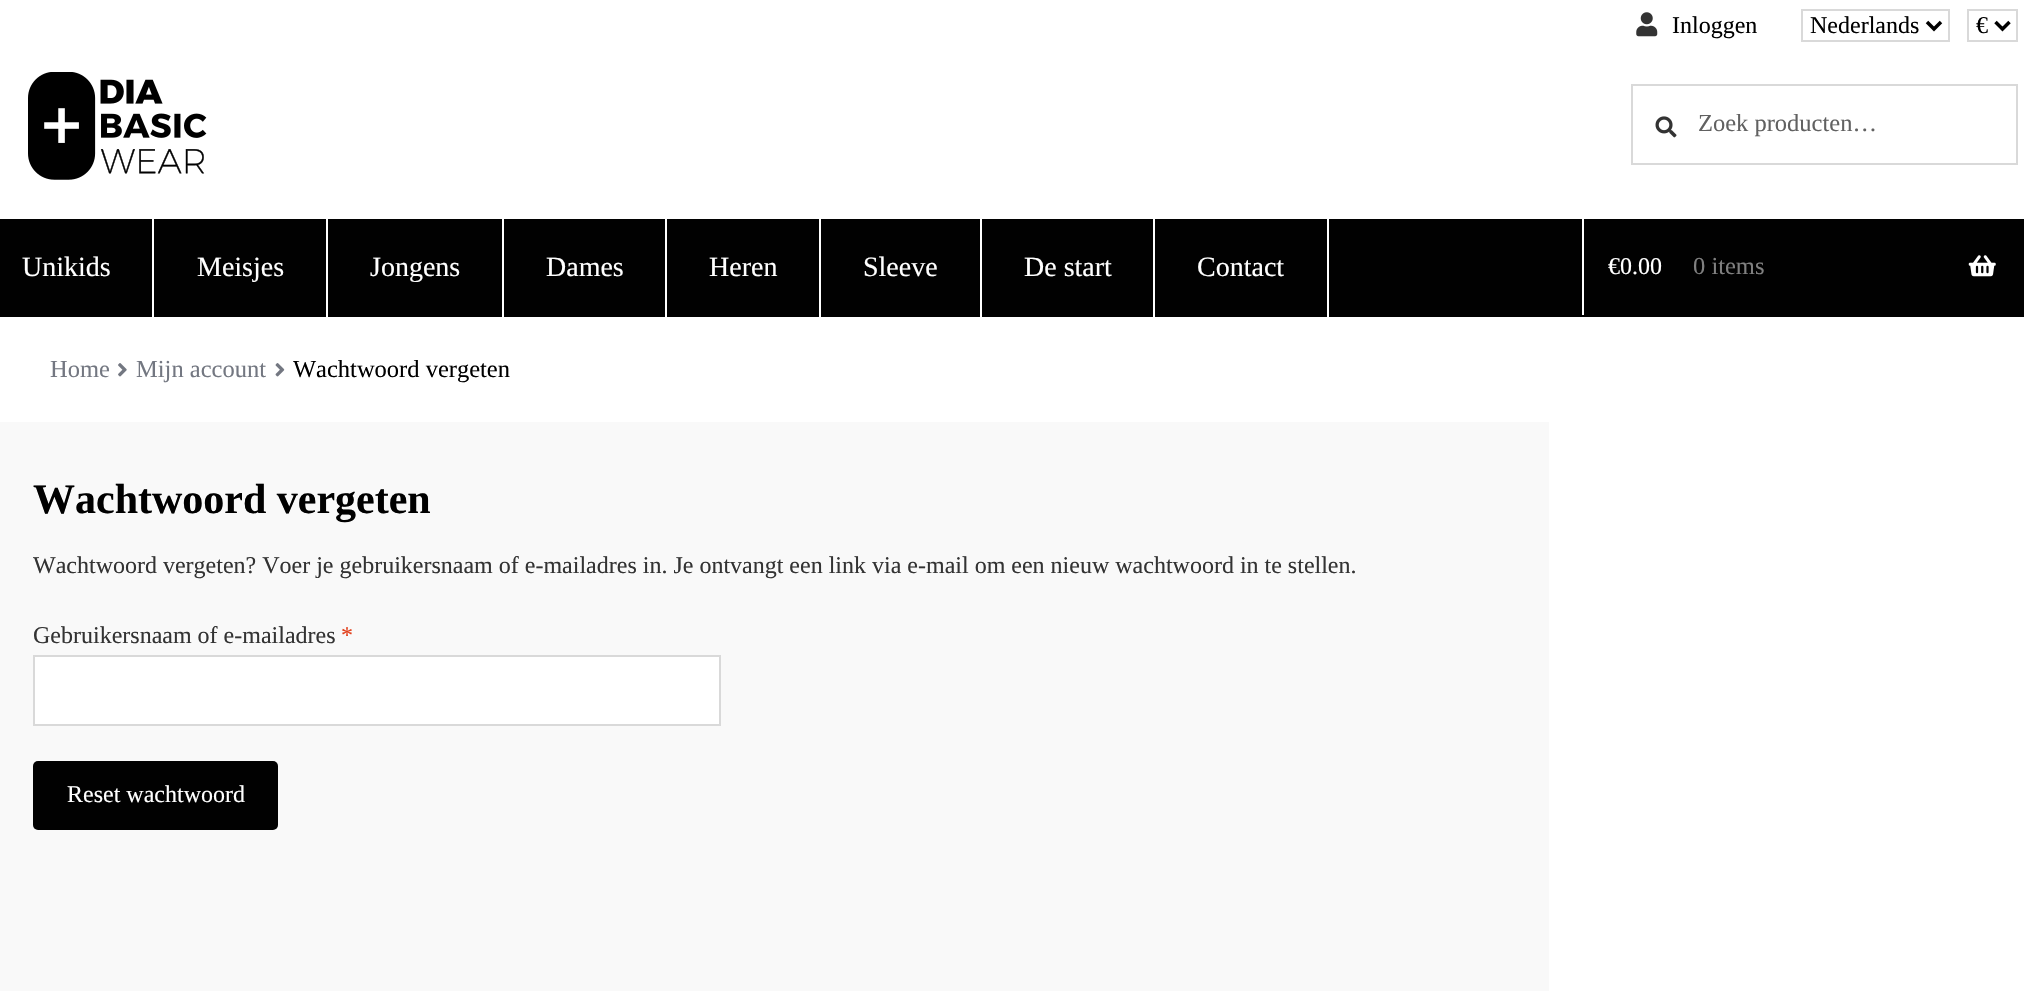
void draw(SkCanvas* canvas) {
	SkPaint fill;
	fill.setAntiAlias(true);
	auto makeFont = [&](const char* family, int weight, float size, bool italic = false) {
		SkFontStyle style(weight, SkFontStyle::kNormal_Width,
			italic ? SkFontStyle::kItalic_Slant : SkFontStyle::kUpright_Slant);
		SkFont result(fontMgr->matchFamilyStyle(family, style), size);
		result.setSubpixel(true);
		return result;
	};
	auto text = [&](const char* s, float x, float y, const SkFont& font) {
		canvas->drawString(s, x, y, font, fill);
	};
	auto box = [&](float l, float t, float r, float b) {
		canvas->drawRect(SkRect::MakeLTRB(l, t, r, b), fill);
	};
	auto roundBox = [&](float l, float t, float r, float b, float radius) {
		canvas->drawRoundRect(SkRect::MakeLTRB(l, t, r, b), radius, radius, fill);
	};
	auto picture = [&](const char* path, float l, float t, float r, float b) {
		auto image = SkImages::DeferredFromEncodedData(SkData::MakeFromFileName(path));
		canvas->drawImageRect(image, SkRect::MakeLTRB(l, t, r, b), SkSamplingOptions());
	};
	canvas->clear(0xFFFFFFFF);
	picture("image0.png", 1636, 12, 1658, 37);
	fill.setStyle(SkPaint::kStroke_Style);
	fill.setStrokeWidth(2);
	fill.setColor(0xFFD9D9D9);
	canvas->drawRect(SkRect::MakeLTRB(1802, 10, 1949, 41), fill);
	fill.setStrokeWidth(3.5f);
	fill.setColor(0xFF000000);
	canvas->drawPath(SkPathBuilder().moveTo(1927, 22).lineTo(1934, 29).lineTo(1941, 22).detach(), fill);
	fill.setStrokeWidth(2);
	fill.setColor(0xFFD9D9D9);
	canvas->drawRect(SkRect::MakeLTRB(1968, 10, 2017, 41), fill);
	fill.setStrokeWidth(3.5f);
	fill.setColor(0xFF000000);
	canvas->drawPath(SkPathBuilder().moveTo(1995.5f, 22).lineTo(2002.5f, 29).lineTo(2009.5f, 22).detach(), fill);
	picture("image1.png", 28, 72, 207, 180);
	fill.setStrokeWidth(2);
	fill.setColor(0xFFD9D9D9);
	canvas->drawRect(SkRect::MakeLTRB(1632, 85, 2017, 164), fill);
	picture("image2.png", 1655, 116, 1677, 138);
	fill.setStyle(SkPaint::kFill_Style);
	fill.setColor(0xFF010101);
	box(0, 219, 2024, 317);
	fill.setColor(0xFFFFFFFF);
	box(152, 219, 154, 317);
	box(326, 219, 328, 317);
	box(502, 219, 504, 317);
	box(665, 219, 667, 317);
	box(819, 219, 821, 317);
	box(980, 219, 982, 317);
	box(1153, 219, 1155, 317);
	box(1327, 219, 1329, 317);
	box(1582, 219, 1584, 315);
	picture("image3.png", 1968, 255, 1996, 277);
	picture("image4.png", 118, 363, 127, 377);
	picture("image5.png", 275, 363, 285, 377);
	fill.setColor(0xFFF9F9F9);
	box(0, 422, 1549, 991);
	fill.setColor(0xFFFFFFFF);
	canvas->drawRect(SkRect::MakeLTRB(34, 656, 720, 725), fill);
	fill.setStyle(SkPaint::kStroke_Style);
	fill.setColor(0xFFD9D9D9);
	canvas->drawRect(SkRect::MakeLTRB(34, 656, 720, 725), fill);
	fill.setStyle(SkPaint::kFill_Style);
	fill.setColor(0xFF010101);
	roundBox(33, 761, 278, 830, 5);
	auto font1 = makeFont("Liberation Serif", 400, 24);
	fill.setColor(0xFF000000);
	text("Inloggen", 1672, 33, font1);
	text("Nederlands", 1810, 33, font1);
	text("€", 1976, 33, font1);
	auto font2 = makeFont("Liberation Serif", 400, 24.5f);
	fill.setColor(0xFF616161);
	text("Zoek producten…", 1698, 131, font2);
	auto font3 = makeFont("Liberation Serif", 400, 28);
	fill.setColor(0xFFFFFFFF);
	text("Unikids", 22, 276, font3);
	text("Meisjes", 197, 276, font3);
	text("Jongens", 370, 276, font3);
	text("Dames", 546, 276, font3);
	text("Heren", 709, 276, font3);
	text("Sleeve", 863, 276, font3);
	text("De start", 1024, 276, font3);
	text("Contact", 1197, 276, font3);
	text("€0.00", 1608, 274, font1);
	fill.setColor(0xFF808080);
	text("0 items", 1693, 274, font2);
	fill.setColor(0xFF737781);
	text("Home", 50, 377, font2);
	text("Mijn account", 136, 377, font2);
	fill.setColor(0xFF000000);
	text("Wachtwoord vergeten", 293, 377, font2);
	auto font4 = makeFont("Liberation Serif", 700, 42);
	text("Wachtwoord vergeten", 33, 513, font4);
	fill.setColor(0xFF333333);
	text("Wachtwoord vergeten? Voer je gebruikersnaam of e-mailadres in. Je ontvangt een link via e-mail om een nieuw wachtwoord in te stellen.", 33, 573, font1);
	text("Gebruikersnaam of e-mailadres", 33, 643, font1);
	fill.setColor(0xFFE2401C);
	text("*", 341, 643, font1);
	fill.setColor(0xFFFFFFFF);
	text("Reset wachtwoord", 67, 802, font1);
}
